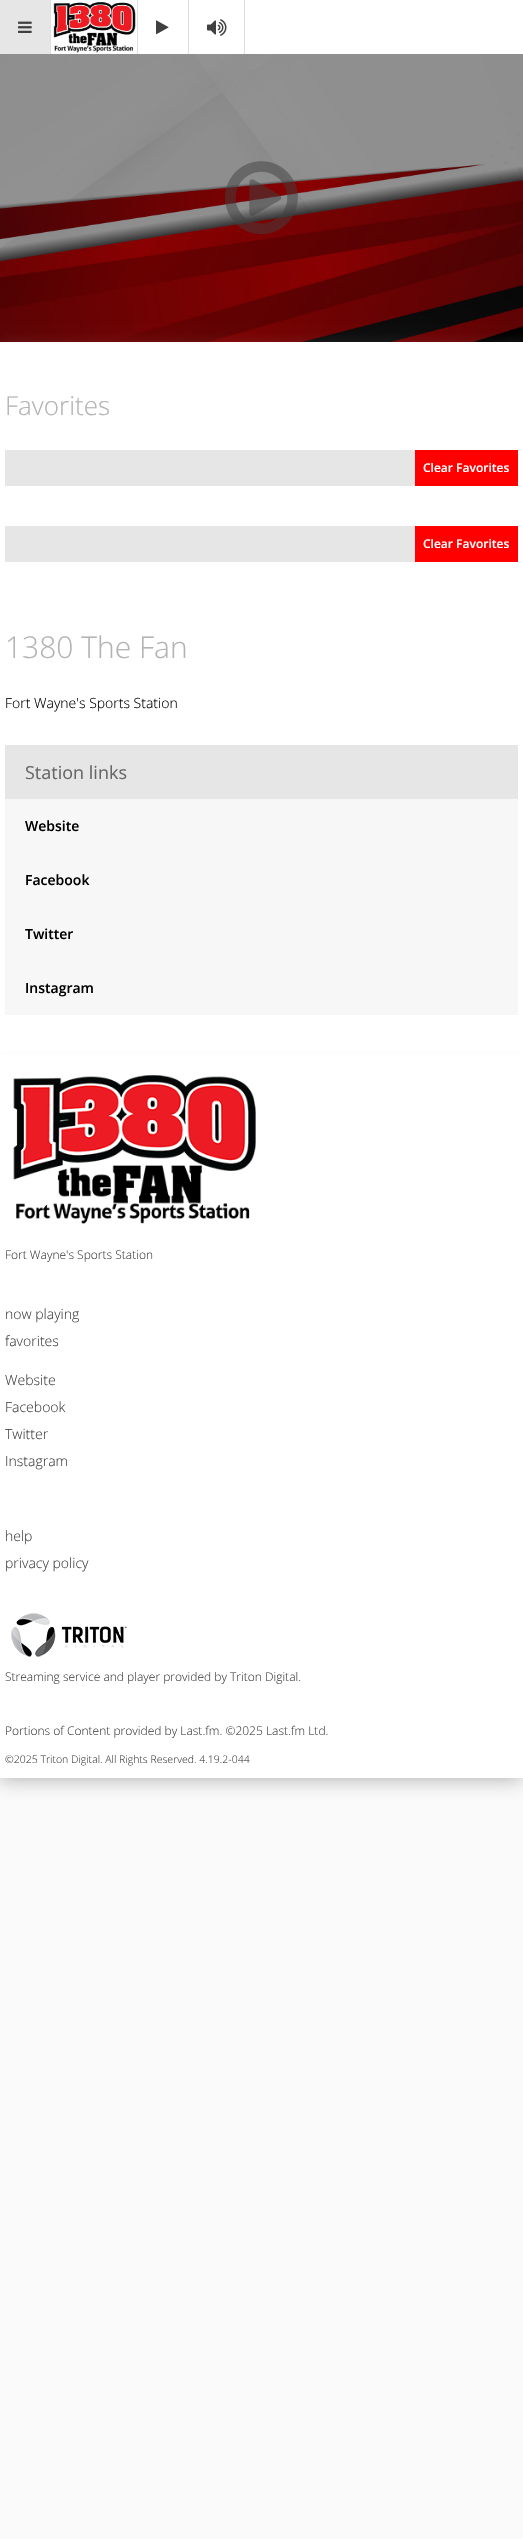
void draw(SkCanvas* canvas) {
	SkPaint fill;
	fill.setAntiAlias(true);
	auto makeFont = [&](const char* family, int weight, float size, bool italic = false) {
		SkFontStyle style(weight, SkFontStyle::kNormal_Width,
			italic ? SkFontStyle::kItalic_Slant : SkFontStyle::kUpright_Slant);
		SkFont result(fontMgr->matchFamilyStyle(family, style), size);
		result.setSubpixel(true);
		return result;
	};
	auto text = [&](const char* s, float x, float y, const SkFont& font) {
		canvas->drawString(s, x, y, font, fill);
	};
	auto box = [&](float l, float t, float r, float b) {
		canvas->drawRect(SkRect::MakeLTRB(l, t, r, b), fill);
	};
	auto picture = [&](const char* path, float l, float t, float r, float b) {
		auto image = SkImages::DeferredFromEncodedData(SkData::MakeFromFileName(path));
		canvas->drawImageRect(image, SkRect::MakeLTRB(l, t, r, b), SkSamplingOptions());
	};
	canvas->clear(0xFFFAFAFA);
	fill.setColor(0x66262626);
	fill.setMaskFilter(SkMaskFilter::MakeBlur(kNormal_SkBlurStyle, 10));
	canvas->drawRect(SkRect::MakeLTRB(-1, 54, 522, 1778), fill);
	fill.setMaskFilter(nullptr);
	fill.setColor(0xFFFFFFFF);
	box(51, 0, 523, 54);
	fill.setColor(0xFFDFDFDF);
	box(50, 0, 51, 54);
	fill.setColor(0xFFE6E6E6);
	box(0, 0, 50, 54);
	picture("image0.png", 18, 21, 32, 33);
	fill.setColor(0xFFDFDFDF);
	box(137, 0, 138, 54);
	picture("image1.png", 53, 2, 136, 53);
	box(188, 0, 189, 54);
	picture("image2.png", 156, 20, 169, 35);
	box(244, 0, 245, 54);
	picture("image3.png", 207, 19, 227, 36);
	picture("image4.png", 0, 54, 523, 342);
	picture("image5.png", 225, 161, 298, 234);
	fill.setColor(0xFFFFFFFF);
	box(0, 1051, 523, 1778);
	fill.setColor(0x1ADBDBDB);
	fill.setMaskFilter(SkMaskFilter::MakeBlur(kNormal_SkBlurStyle, 6));
	canvas->drawRect(SkRect::MakeLTRB(0, 342, 523, 1051), fill);
	fill.setMaskFilter(nullptr);
	fill.setColor(0xFFFFFFFF);
	box(0, 342, 523, 1051);
	fill.setColor(0xFFE6E6E6);
	box(5, 450, 415, 486);
	fill.setColor(0xFFFF0000);
	box(415, 450, 518, 486);
	fill.setColor(0xFFE6E6E6);
	box(5, 526, 415, 562);
	fill.setColor(0xFFFF0000);
	box(415, 526, 518, 562);
	fill.setColor(0xFFF7F7F7);
	box(5, 799, 518, 1015);
	fill.setColor(0xFFE6E6E6);
	box(5, 745, 518, 799);
	picture("image6.png", 13, 1075, 256, 1224);
	picture("image7.png", 11, 1613, 127, 1657);
	auto font1 = makeFont("Open Sans", 300, 26);
	fill.setColor(0xFFB3B3B3);
	text("Favorites", 5, 415, font1);
	auto font2 = makeFont("Open Sans", 600, 12);
	fill.setColor(0xFFFFFFFF);
	text("Clear Favorites", 423, 472, font2);
	text("Clear Favorites", 423, 548, font2);
	auto font3 = makeFont("Open Sans", 300, 30);
	fill.setColor(0xFFB3B3B3);
	text("1380 The Fan", 5, 658, font3);
	auto font4 = makeFont("Open Sans", 300, 14);
	fill.setColor(0xFF000000);
	text("Fort Wayne's Sports Station", 5, 708, font4);
	auto font5 = makeFont("Open Sans", 400, 18);
	fill.setColor(0xFF666666);
	text("Station links", 25, 779, font5);
	auto font6 = makeFont("Open Sans", 600, 14);
	fill.setColor(0xFF000000);
	text("Website", 25, 831, font6);
	text("Facebook", 25, 885, font6);
	text("Twitter", 25, 939, font6);
	text("Instagram", 25, 993, font6);
	auto font7 = makeFont("Open Sans", 300, 12);
	fill.setColor(0xFF404040);
	text("Fort Wayne's Sports Station", 5, 1259, font7);
	text("now playing", 5, 1319, font4);
	text("favorites", 5, 1346, font4);
	text("Website", 5, 1385, font4);
	text("Facebook", 5, 1412, font4);
	text("Twitter", 5, 1439, font4);
	text("Instagram", 5, 1466, font4);
	text("help", 5, 1541, font4);
	text("privacy policy", 5, 1568, font4);
	text("Streaming service and player provided by Triton Digital.", 5, 1681, font7);
	text("Portions of Content provided by Last.fm. ©2025 Last.fm Ltd.", 5, 1735, font7);
	auto font8 = makeFont("Open Sans", 300, 10.5f);
	text("©2025 Triton Digital. All Rights Reserved. 4.19.2-044", 5, 1763, font8);
}
